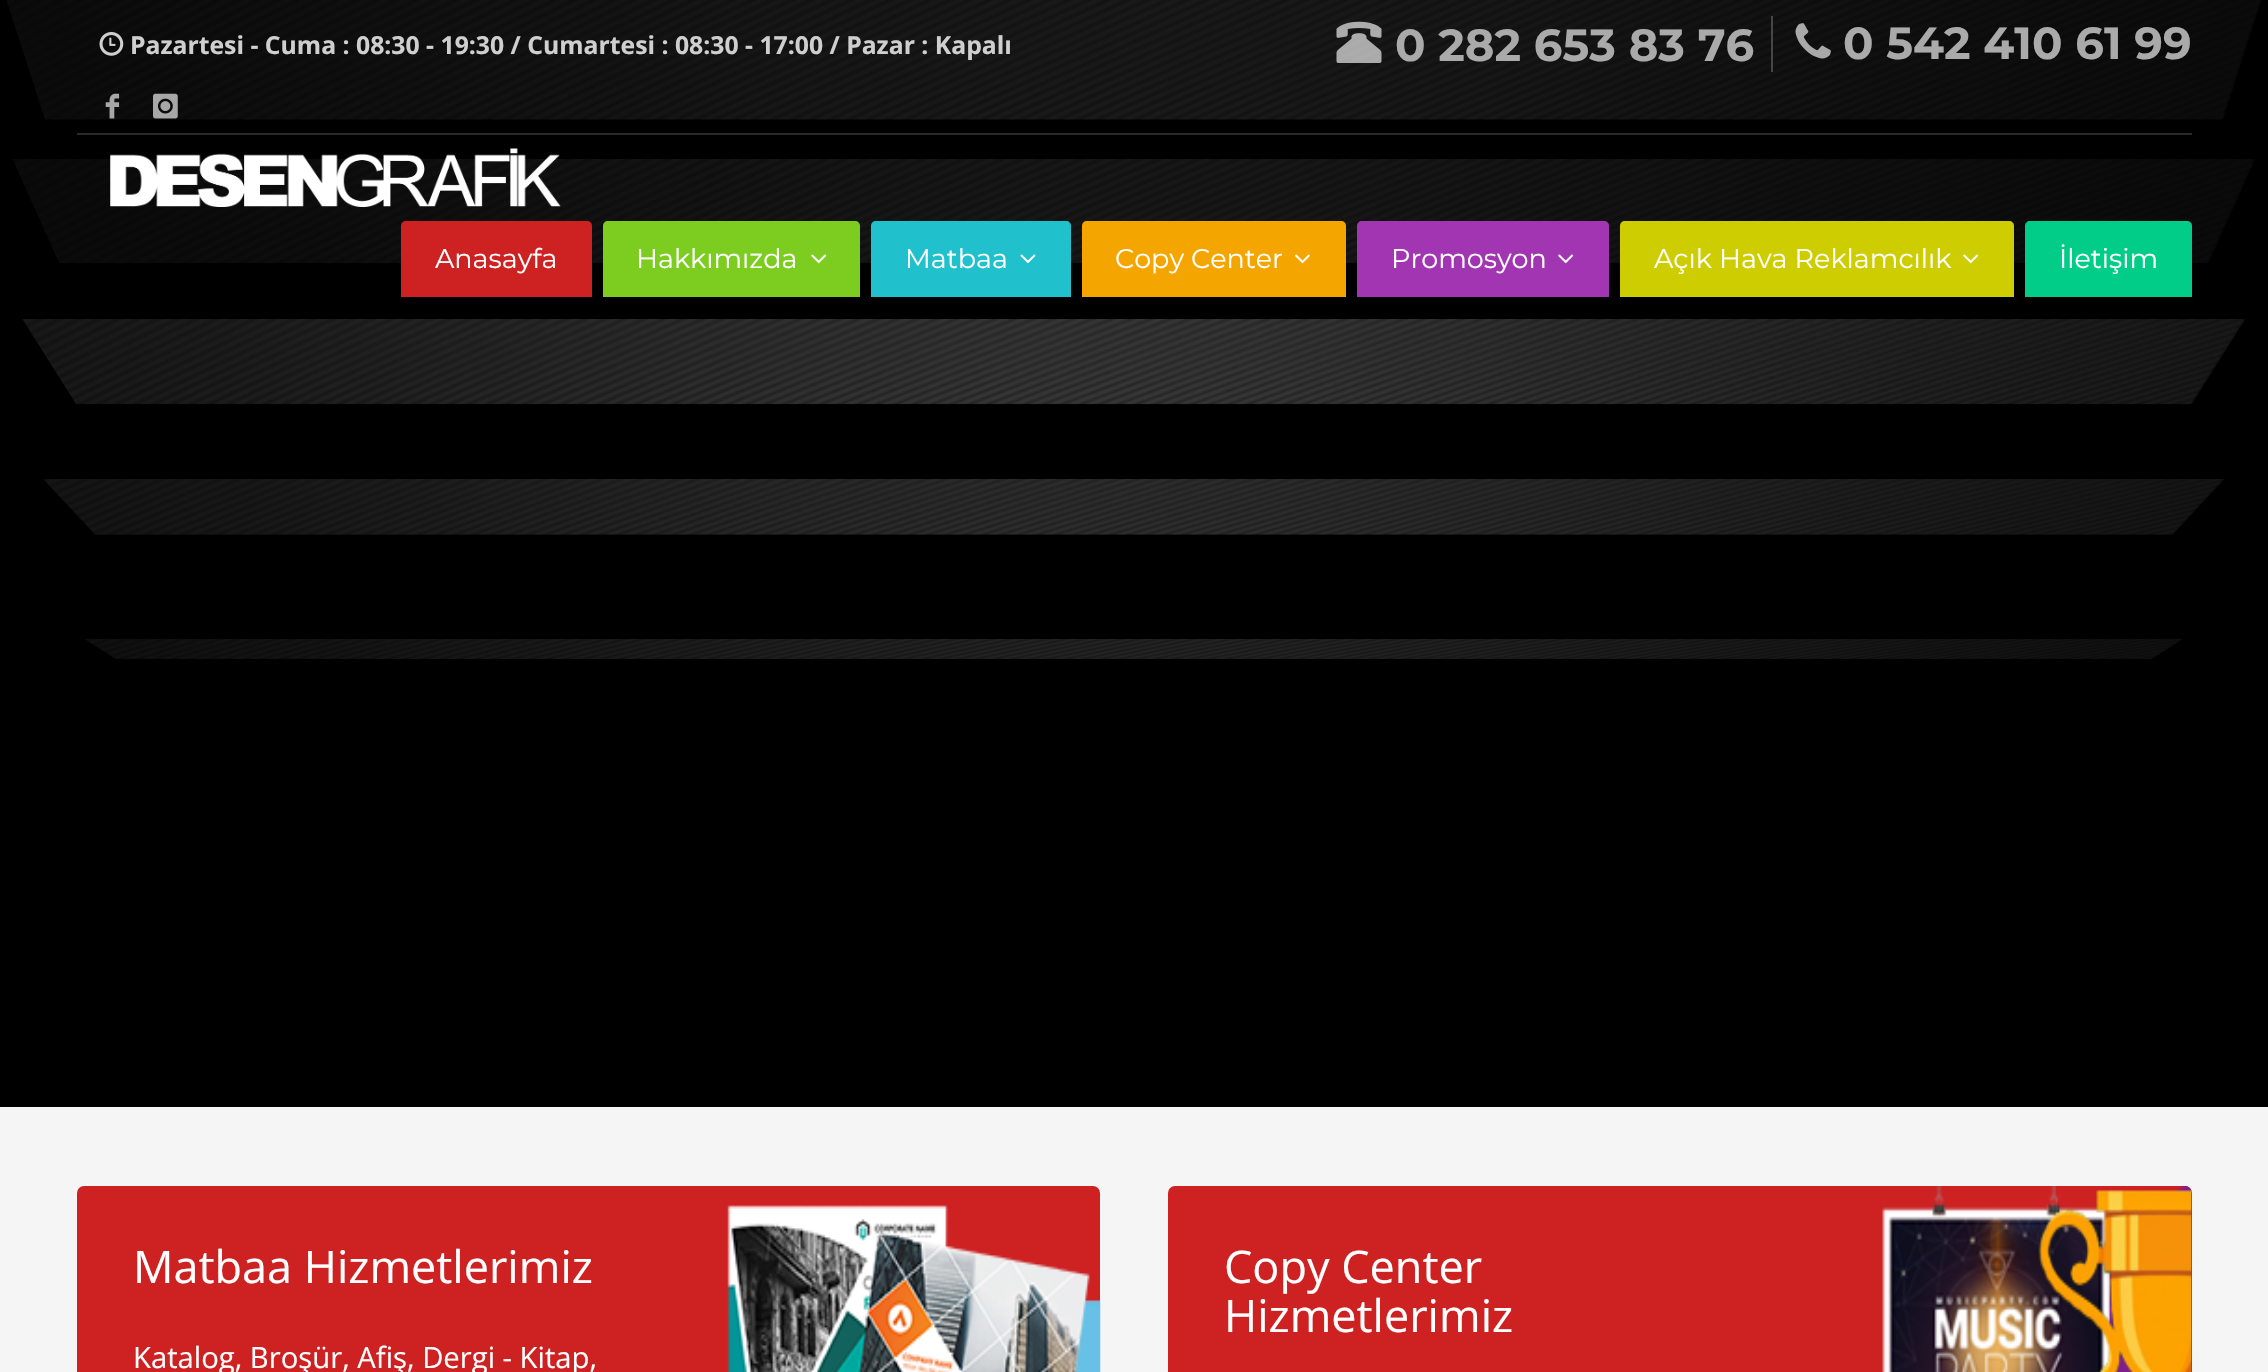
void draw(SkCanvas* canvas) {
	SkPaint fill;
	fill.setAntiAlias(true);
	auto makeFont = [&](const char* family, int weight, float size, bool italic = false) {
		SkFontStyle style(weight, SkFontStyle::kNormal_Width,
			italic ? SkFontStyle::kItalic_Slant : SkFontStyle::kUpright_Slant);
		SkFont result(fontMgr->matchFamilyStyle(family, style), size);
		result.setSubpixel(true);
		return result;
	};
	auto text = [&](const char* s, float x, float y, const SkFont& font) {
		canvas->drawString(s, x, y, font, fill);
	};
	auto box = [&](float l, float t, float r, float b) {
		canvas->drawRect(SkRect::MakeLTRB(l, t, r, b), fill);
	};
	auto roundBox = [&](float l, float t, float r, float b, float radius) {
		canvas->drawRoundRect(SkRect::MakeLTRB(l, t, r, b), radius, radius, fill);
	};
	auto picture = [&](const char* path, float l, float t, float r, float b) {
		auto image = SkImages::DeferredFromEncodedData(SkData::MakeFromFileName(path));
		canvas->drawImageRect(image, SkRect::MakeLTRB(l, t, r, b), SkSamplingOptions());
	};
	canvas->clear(0xFFF5F5F5);
	fill.setColor(0xFF000000);
	box(0, 0, 2268, 1107);
	picture("image0.png", 6, 0, 2262, 120);
	picture("image1.png", 13, 159, 2255, 264);
	picture("image2.png", 22, 319, 2245, 405);
	picture("image3.png", 43, 479, 2224, 535);
	picture("image4.png", 85, 639, 2182, 659);
	picture("image5.png", 99, 32, 124, 56);
	picture("image6.png", 105, 93, 120, 119);
	picture("image7.png", 153, 93, 178, 119);
	fill.setColor(0x54B4B4B4);
	box(1771, 16, 1773, 72);
	picture("image8.png", 1336, 21, 1382, 63);
	picture("image9.png", 1795, 23, 1831, 59);
	fill.setColor(0xFF292929);
	box(77, 133, 2192, 135);
	picture("image10.png", 110, 148, 561, 207);
	fill.setColor(0xFFCD2122);
	canvas->drawPath(SkPathBuilder().moveTo(406, 221).lineTo(587, 221).cubicTo(590, 221, 592, 223, 592, 226).lineTo(592, 297).lineTo(401, 297).lineTo(401, 226).cubicTo(401, 223, 403, 221, 406, 221).close().detach(), fill);
	fill.setColor(0xFF7DCD21);
	canvas->drawPath(SkPathBuilder().moveTo(608, 221).lineTo(855, 221).cubicTo(858, 221, 860, 223, 860, 226).lineTo(860, 297).lineTo(603, 297).lineTo(603, 226).cubicTo(603, 223, 605, 221, 608, 221).close().detach(), fill);
	picture("image11.png", 811, 254, 827, 264);
	fill.setColor(0xFF21C0CD);
	canvas->drawPath(SkPathBuilder().moveTo(876, 221).lineTo(1066, 221).cubicTo(1069, 221, 1071, 223, 1071, 226).lineTo(1071, 297).lineTo(871, 297).lineTo(871, 226).cubicTo(871, 223, 873, 221, 876, 221).close().detach(), fill);
	picture("image12.png", 1020, 254, 1036, 264);
	fill.setColor(0xFFF4A500);
	canvas->drawPath(SkPathBuilder().moveTo(1087, 221).lineTo(1341, 221).cubicTo(1344, 221, 1346, 223, 1346, 226).lineTo(1346, 297).lineTo(1082, 297).lineTo(1082, 226).cubicTo(1082, 223, 1084, 221, 1087, 221).close().detach(), fill);
	picture("image13.png", 1295, 254, 1310, 264);
	fill.setColor(0xFFA236B2);
	canvas->drawPath(SkPathBuilder().moveTo(1362, 221).lineTo(1604, 221).cubicTo(1607, 221, 1609, 223, 1609, 226).lineTo(1609, 297).lineTo(1357, 297).lineTo(1357, 226).cubicTo(1357, 223, 1359, 221, 1362, 221).close().detach(), fill);
	picture("image14.png", 1558, 254, 1574, 264);
	fill.setColor(0xFFCDCD01);
	canvas->drawPath(SkPathBuilder().moveTo(1625, 221).lineTo(2009, 221).cubicTo(2012, 221, 2014, 223, 2014, 226).lineTo(2014, 297).lineTo(1620, 297).lineTo(1620, 226).cubicTo(1620, 223, 1622, 221, 1625, 221).close().detach(), fill);
	picture("image15.png", 1963, 254, 1979, 264);
	fill.setColor(0xFF01CD88);
	canvas->drawPath(SkPathBuilder().moveTo(2030, 221).lineTo(2187, 221).cubicTo(2190, 221, 2192, 223, 2192, 226).lineTo(2192, 297).lineTo(2025, 297).lineTo(2025, 226).cubicTo(2025, 223, 2027, 221, 2030, 221).close().detach(), fill);
	fill.setColor(0xFFCD2122);
	roundBox(77, 1186, 1100, 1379, 7);
	picture("image16.png", 727, 1205, 1101, 1372);
	roundBox(1168, 1186, 2192, 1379, 7);
	picture("image17.png", 1882, 1185, 2192, 1372);
	auto font1 = makeFont("Open Sans", 700, 24.75f);
	fill.setColor(0xFFCFCFCF);
	text("Pazartesi - Cuma : 08:30 - 19:30 / Cumartesi : 08:30 - 17:00 / Pazar : Kapalı", 130, 54, font1);
	auto font2 = makeFont("Montserrat", 700, 45);
	fill.setColor(0xFFAAAAAA);
	text("0 282 653 83 76", 1395, 61, font2);
	text("0 542 410 61 99", 1843, 59, font2);
	auto font3 = makeFont("Montserrat", 400, 27);
	fill.setColor(0xFFFFFFFF);
	text("Anasayfa", 435, 268, font3);
	text("Hakkımızda", 636, 268, font3);
	text("Matbaa", 905, 268, font3);
	text("Copy Center", 1115, 268, font3);
	text("Promosyon", 1391, 268, font3);
	text("Açık Hava Reklamcılık", 1654, 268, font3);
	text("İletişim", 2059, 268, font3);
	auto font4 = makeFont("Open Sans", 400, 45);
	text("Matbaa Hizmetlerimiz", 133, 1283, font4);
	auto font5 = makeFont("Open Sans", 400, 29.25f);
	text("Katalog, Broşür, Afiş, Dergi - Kitap,", 133, 1368, font5);
	text("Copy Center", 1224, 1283, font4);
	text("Hizmetlerimiz", 1224, 1332, font4);
}
